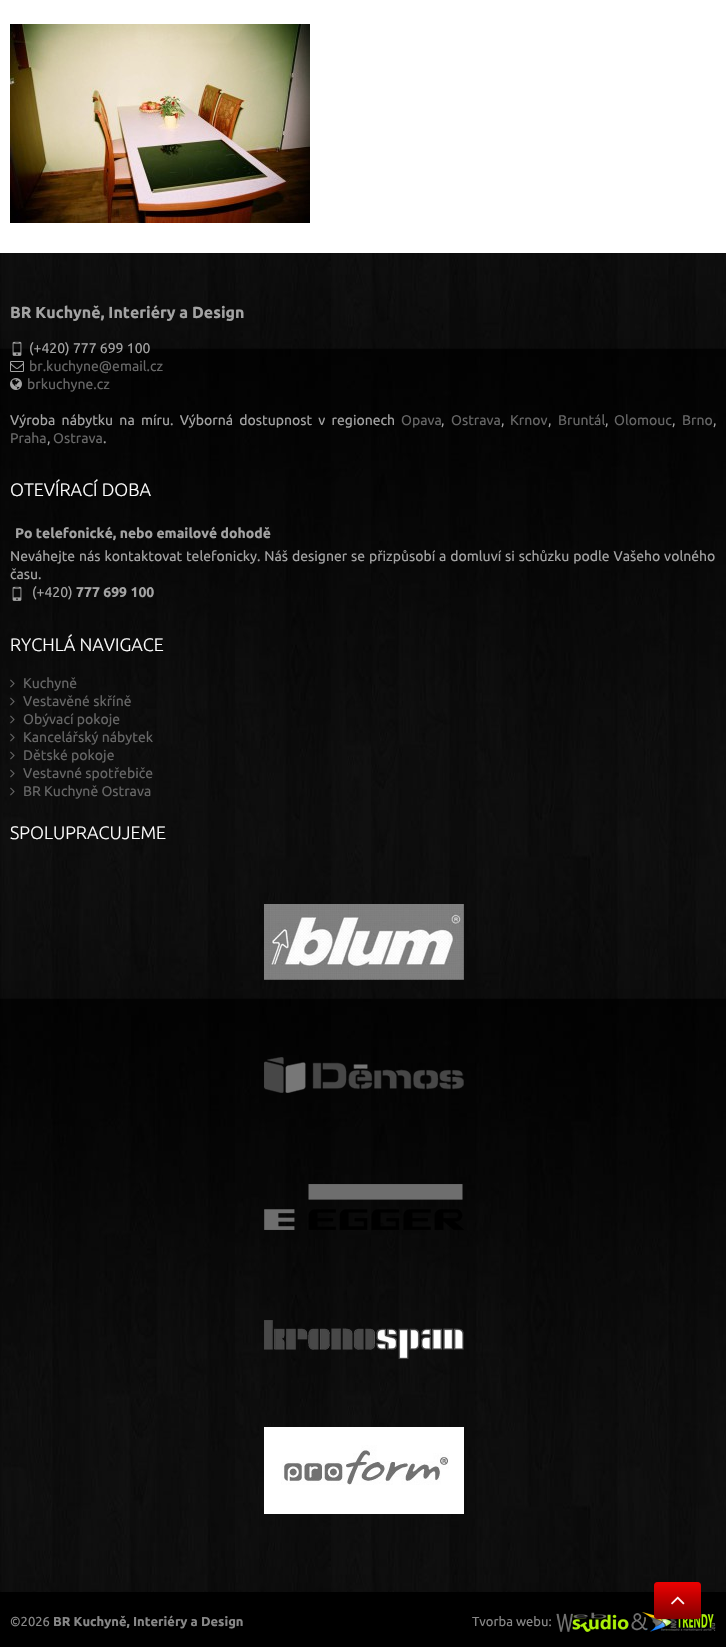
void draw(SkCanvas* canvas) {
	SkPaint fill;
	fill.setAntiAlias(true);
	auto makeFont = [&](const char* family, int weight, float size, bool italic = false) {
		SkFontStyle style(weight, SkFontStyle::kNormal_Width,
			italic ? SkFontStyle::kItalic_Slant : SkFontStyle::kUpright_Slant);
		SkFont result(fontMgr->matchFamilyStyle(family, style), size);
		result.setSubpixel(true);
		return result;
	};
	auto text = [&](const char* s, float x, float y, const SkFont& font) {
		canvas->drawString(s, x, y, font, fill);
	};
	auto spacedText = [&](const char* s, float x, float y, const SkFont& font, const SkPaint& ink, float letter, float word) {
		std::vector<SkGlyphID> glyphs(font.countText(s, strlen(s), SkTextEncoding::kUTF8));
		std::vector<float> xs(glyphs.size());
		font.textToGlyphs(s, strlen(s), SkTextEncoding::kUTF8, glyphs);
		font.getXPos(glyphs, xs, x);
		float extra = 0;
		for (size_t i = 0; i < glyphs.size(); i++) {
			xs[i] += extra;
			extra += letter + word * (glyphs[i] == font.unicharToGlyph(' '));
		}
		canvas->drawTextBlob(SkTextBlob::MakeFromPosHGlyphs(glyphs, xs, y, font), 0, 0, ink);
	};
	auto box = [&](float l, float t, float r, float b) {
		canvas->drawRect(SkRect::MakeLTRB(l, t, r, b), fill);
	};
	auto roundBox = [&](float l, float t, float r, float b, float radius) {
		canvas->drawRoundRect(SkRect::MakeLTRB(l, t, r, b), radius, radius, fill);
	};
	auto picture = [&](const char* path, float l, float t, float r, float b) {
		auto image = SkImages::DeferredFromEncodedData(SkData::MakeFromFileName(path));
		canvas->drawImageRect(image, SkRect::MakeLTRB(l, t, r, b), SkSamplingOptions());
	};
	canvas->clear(0xFFFFFFFF);
	picture("image0.png", 10, 24, 310, 223);
	picture("image1.png", 0, 253, 726, 1592);
	picture("image2.png", 12, 341, 22, 356);
	picture("image3.png", 10, 361, 24, 372);
	picture("image4.png", 10, 378, 22, 390);
	picture("image5.png", 12, 586, 22, 601);
	picture("image6.png", 10, 679, 15, 688);
	picture("image7.png", 10, 697, 15, 706);
	picture("image8.png", 10, 715, 15, 724);
	picture("image9.png", 10, 733, 15, 742);
	picture("image10.png", 10, 751, 15, 760);
	picture("image11.png", 10, 769, 15, 778);
	picture("image12.png", 10, 787, 15, 796);
	picture("image13.png", 264, 904, 464, 980);
	picture("image14.png", 264, 1057, 464, 1093);
	picture("image15.png", 264, 1184, 464, 1230);
	picture("image16.png", 264, 1320, 464, 1359);
	picture("image17.png", 264, 1427, 464, 1514);
	fill.setColor(0xFF000000);
	box(0, 1592, 726, 1647);
	picture("image18.png", 556, 1612, 716, 1632);
	fill.setColor(0x14000000);
	canvas->drawPath(SkPathBuilder().moveTo(654, 1615).cubicTo(654, 1621, 660, 1620, 664, 1620).lineTo(690, 1620).cubicTo(695, 1620, 701, 1621, 701, 1615).cubicTo(701, 1617, 699, 1619, 697, 1619).lineTo(658, 1619).cubicTo(656, 1619, 654, 1617, 654, 1615).close().detach(), fill);
	canvas->save();
	canvas->clipPath(SkPathBuilder(SkPathFillType::kEvenOdd).moveTo(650, 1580).lineTo(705, 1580).lineTo(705, 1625).lineTo(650, 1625).close().moveTo(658, 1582).lineTo(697, 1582).cubicTo(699, 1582, 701, 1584, 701, 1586).lineTo(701, 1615).cubicTo(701, 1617, 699, 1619, 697, 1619).lineTo(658, 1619).cubicTo(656, 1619, 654, 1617, 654, 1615).lineTo(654, 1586).cubicTo(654, 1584, 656, 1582, 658, 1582).close().detach(), true);
	fill.setColor(0x0D000000);
	fill.setMaskFilter(SkMaskFilter::MakeBlur(kNormal_SkBlurStyle, 1));
	canvas->drawRoundRect(SkRect::MakeLTRB(654, 1584, 701, 1621), 4, 4, fill);
	fill.setMaskFilter(nullptr);
	canvas->restore();
	fill.setColor(0xF5820000);
	roundBox(654, 1582, 701, 1619, 4);
	{
		const SkColor colors[] = {0xF5F20000, 0xF5820000};
		const float stops[] = {0, 1};
		const SkPoint ends[] = {{678, 1582}, {678, 1619}};
		fill.setShader(SkGradientShader::MakeLinear(ends, colors, stops, 2, SkTileMode::kClamp));
		fill.setAlpha(255);
	}
	roundBox(654, 1582, 701, 1619, 4);
	picture("image19.png", 671, 1596, 685, 1605);
	auto font1 = makeFont("Ubuntu", 700, 16);
	fill.setShader(nullptr);
	fill.setColor(0xFFA3A3A3);
	text("BR Kuchyně, Interiéry a Design", 10, 318, font1);
	auto font2 = makeFont("Ubuntu", 400, 14);
	text("(+420) 777 699 100", 29, 353, font2);
	fill.setColor(0xFF666666);
	text("br.kuchyne@email.cz", 29, 371, font2);
	text("brkuchyne.cz", 27, 389, font2);
	fill.setColor(0xFFA3A3A3);
	spacedText("Výroba nábytku na míru. Výborná dostupnost v regionech", 10, 425, font2, fill, 0, 3);
	fill.setColor(0xFF666666);
	text("Opava", 401, 425, font2);
	fill.setColor(0xFFA3A3A3);
	text(",", 441, 425, font2);
	fill.setColor(0xFF666666);
	text("Ostrava", 451, 425, font2);
	fill.setColor(0xFFA3A3A3);
	text(",", 501, 425, font2);
	fill.setColor(0xFF666666);
	text("Krnov", 510, 425, font2);
	fill.setColor(0xFFA3A3A3);
	text(",", 548, 425, font2);
	fill.setColor(0xFF666666);
	text("Bruntál", 558, 425, font2);
	fill.setColor(0xFFA3A3A3);
	text(",", 605, 425, font2);
	fill.setColor(0xFF666666);
	text("Olomouc", 614, 425, font2);
	fill.setColor(0xFFA3A3A3);
	text(",", 672, 425, font2);
	fill.setColor(0xFF666666);
	text("Brno", 682, 425, font2);
	fill.setColor(0xFFA3A3A3);
	text(",", 713, 425, font2);
	fill.setColor(0xFF666666);
	text("Praha", 10, 443, font2);
	fill.setColor(0xFFA3A3A3);
	text(",", 47, 443, font2);
	fill.setColor(0xFF666666);
	text("Ostrava", 53, 443, font2);
	fill.setColor(0xFFA3A3A3);
	text(".", 103, 443, font2);
	auto font3 = makeFont("Ubuntu", 300, 18);
	fill.setColor(0xFFFDFDFD);
	text("OTEVÍRACÍ DOBA", 10, 496, font3);
	auto font4 = makeFont("Ubuntu", 700, 14);
	fill.setColor(0xFFA3A3A3);
	text("Po telefonické, nebo emailové dohodě", 15, 538, font4);
	spacedText("Neváhejte nás kontaktovat telefonicky. Náš designer se přizpůsobí a domluví si schůzku podle Vašeho volného", 10, 561, font2, fill, 0, 0.6f);
	text("času.", 10, 579, font2);
	text("(+420)", 32, 597, font2);
	text("777 699 100", 76, 597, font4);
	fill.setColor(0xFFFDFDFD);
	text("RYCHLÁ NAVIGACE", 10, 651, font3);
	fill.setColor(0xFF666666);
	text("Kuchyně", 23, 688, font2);
	text("Vestavěné skříně", 23, 706, font2);
	text("Obývací pokoje", 23, 724, font2);
	text("Kancelářský nábytek", 23, 742, font2);
	text("Dětské pokoje", 23, 760, font2);
	text("Vestavné spotřebiče", 23, 778, font2);
	text("BR Kuchyně Ostrava", 23, 796, font2);
	fill.setColor(0xFFFDFDFD);
	text("SPOLUPRACUJEME", 10, 839, font3);
	auto font5 = makeFont("Ubuntu", 400, 13);
	fill.setColor(0xFF878787);
	text("©2026", 10, 1626, font5);
	auto font6 = makeFont("Ubuntu", 700, 13);
	text("BR Kuchyně, Interiéry a Design", 53, 1626, font6);
	text("Tvorba webu:", 472, 1626, font5);
}
